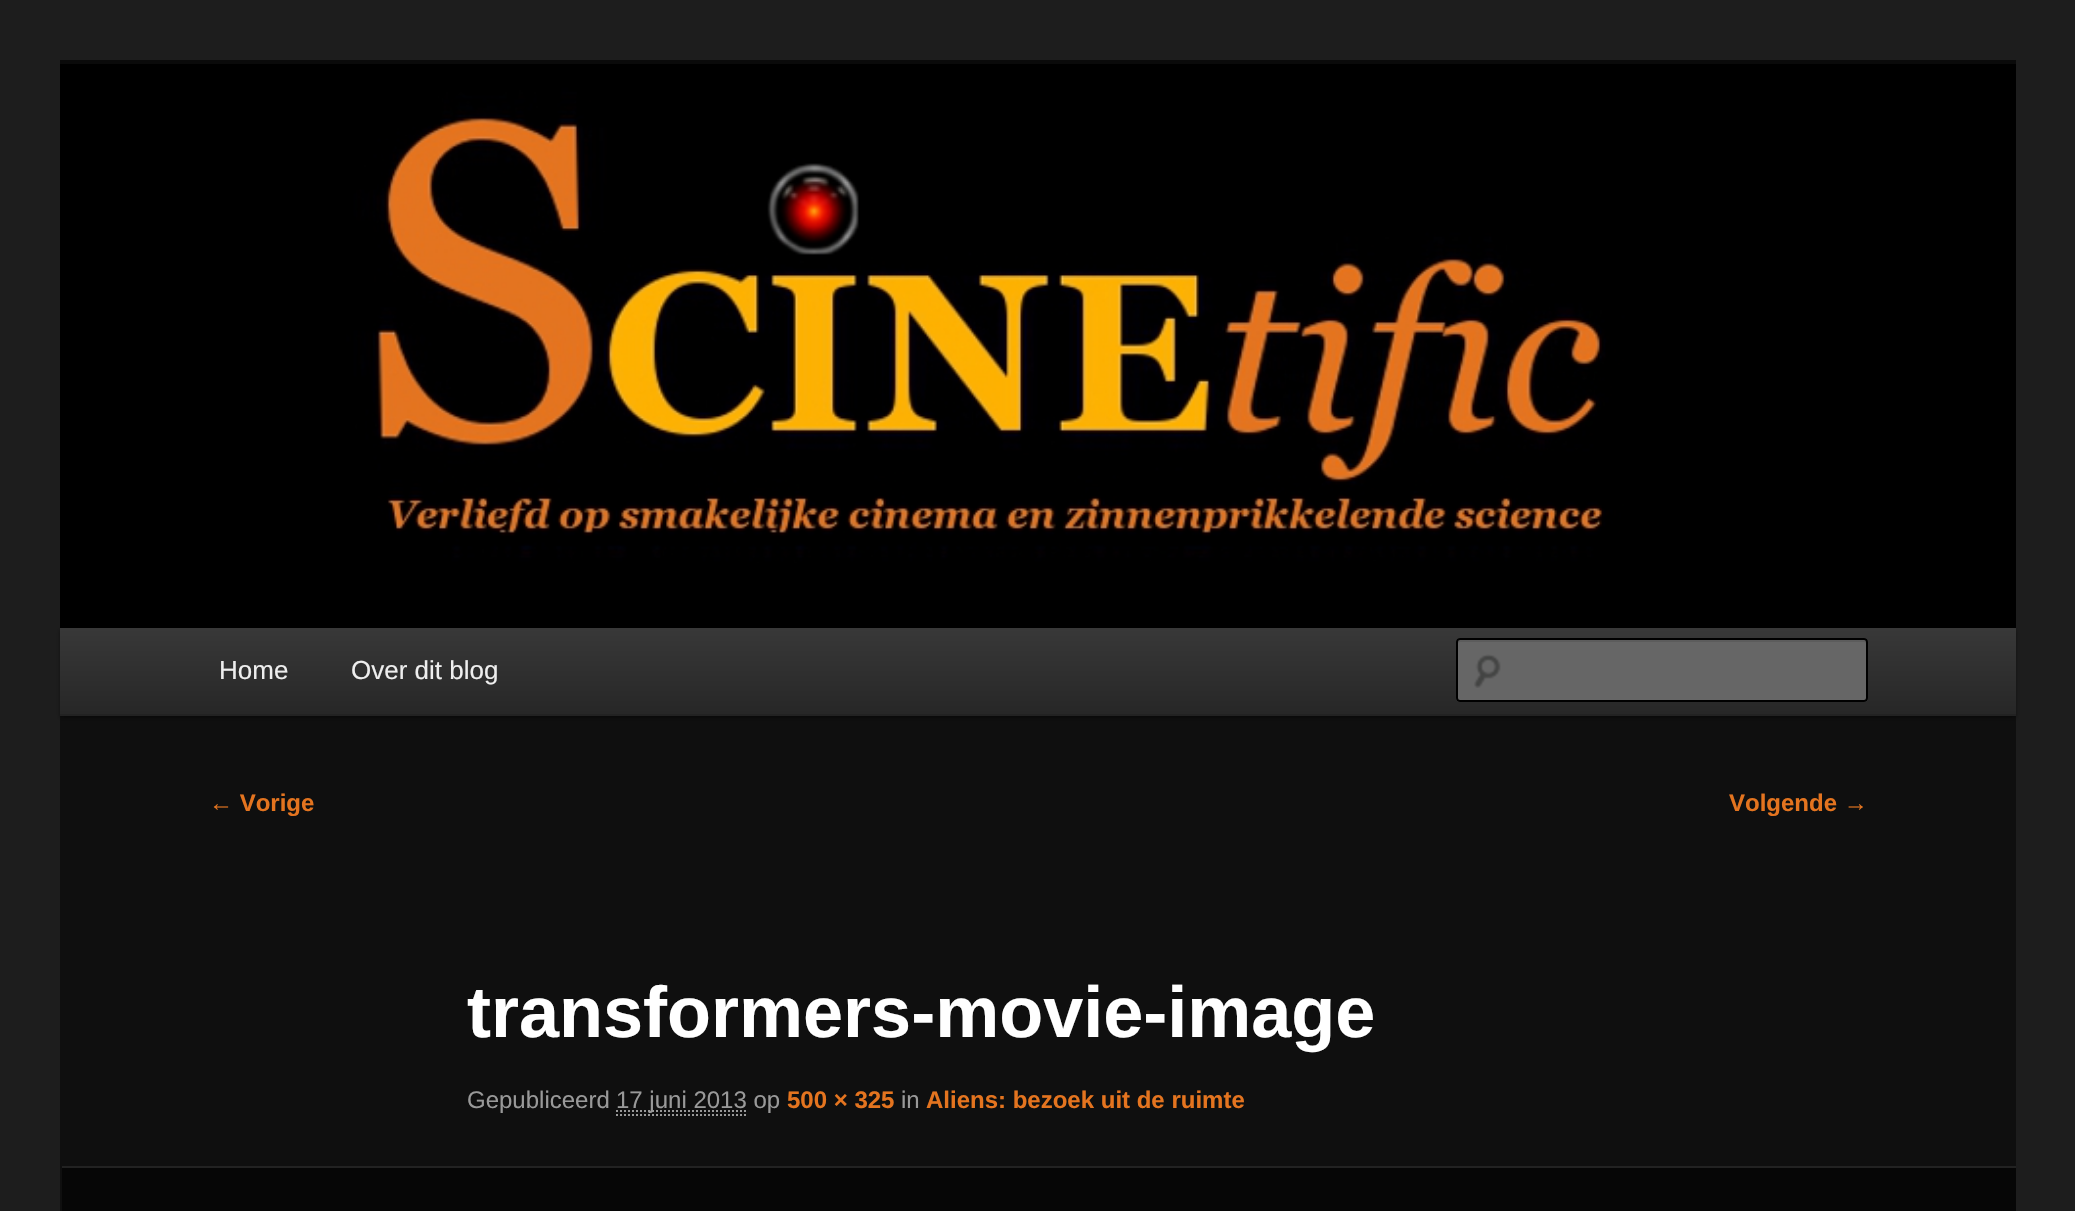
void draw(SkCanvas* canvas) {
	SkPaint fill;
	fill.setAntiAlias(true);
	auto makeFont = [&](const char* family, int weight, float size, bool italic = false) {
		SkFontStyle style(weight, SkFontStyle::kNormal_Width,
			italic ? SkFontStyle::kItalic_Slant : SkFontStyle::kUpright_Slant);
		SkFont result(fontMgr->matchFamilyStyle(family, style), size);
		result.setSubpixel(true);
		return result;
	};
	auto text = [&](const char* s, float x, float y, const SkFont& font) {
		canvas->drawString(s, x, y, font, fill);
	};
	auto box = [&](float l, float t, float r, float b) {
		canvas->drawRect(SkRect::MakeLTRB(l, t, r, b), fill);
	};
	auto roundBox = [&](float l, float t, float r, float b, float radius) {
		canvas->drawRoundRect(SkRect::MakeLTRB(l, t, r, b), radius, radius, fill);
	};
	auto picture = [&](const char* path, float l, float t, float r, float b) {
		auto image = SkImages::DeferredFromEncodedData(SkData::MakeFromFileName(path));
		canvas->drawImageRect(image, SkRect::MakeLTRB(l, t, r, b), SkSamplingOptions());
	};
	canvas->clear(0xFF1D1D1D);
	fill.setColor(0xFF0F0F0F);
	box(60, 716, 2016, 1211);
	fill.setColor(0xFF0A0A0A);
	box(60, 60, 2016, 64);
	fill.setColor(0x66000000);
	fill.setMaskFilter(SkMaskFilter::MakeBlur(kNormal_SkBlurStyle, 2));
	canvas->drawRect(SkRect::MakeLTRB(60, 630, 2016, 718), fill);
	fill.setMaskFilter(nullptr);
	picture("image0.png", 60, 64, 2016, 628);
	{
		const SkColor colors[] = {0xFF383838, 0xFF272727};
		const float stops[] = {0, 1};
		const SkPoint ends[] = {{1038, 628}, {1038, 714}};
		fill.setShader(SkGradientShader::MakeLinear(ends, colors, stops, 2, SkTileMode::kClamp));
		fill.setAlpha(255);
	}
	box(60, 628, 2016, 714);
	fill.setShader(nullptr);
	fill.setColor(0xFF222222);
	box(60, 714, 2016, 716);
	fill.setColor(0xFF666666);
	roundBox(1456, 638, 1868, 702, 4);
	picture("image1.png", 1474, 654, 1501, 688);
	fill.setColor(0xFF5C5C5C);
	canvas->drawPath(SkPathBuilder().moveTo(1460, 642).lineTo(1864, 642).cubicTo(1865, 642, 1866, 643, 1866, 644).lineTo(1866, 641).lineTo(1864, 640).lineTo(1460, 640).cubicTo(1458, 640, 1458, 642, 1458, 644).cubicTo(1458, 643, 1459, 642, 1460, 642).close().detach(), fill);
	fill.setStyle(SkPaint::kStroke_Style);
	fill.setStrokeWidth(2);
	fill.setColor(0xFF000000);
	canvas->drawRoundRect(SkRect::MakeLTRB(1457, 639, 1867, 701), 3, 3, fill);
	fill.setColor(0xFF999999);
	fill.setPathEffect(SkDashPathEffect::Make({{2, 2}}, 0));
	canvas->drawPath(SkPathBuilder().moveTo(616, 1115).lineTo(746, 1115).detach(), fill);
	fill.setPathEffect(nullptr);
	fill.setPathEffect(SkDashPathEffect::Make({{2, 2}}, 0));
	canvas->drawPath(SkPathBuilder().moveTo(616, 1111).lineTo(747, 1111).detach(), fill);
	fill.setPathEffect(nullptr);
	fill.setStyle(SkPaint::kFill_Style);
	fill.setColor(0xFF060606);
	box(62, 1168, 2016, 1211);
	fill.setColor(0xFF222222);
	box(62, 1166, 2016, 1168);
	auto font1 = makeFont("Liberation Sans", 400, 26);
	fill.setColor(0xFFEEEEEE);
	text("Home", 219, 679, font1);
	text("Over dit blog", 351, 679, font1);
	auto font2 = makeFont("Liberation Sans", 700, 24);
	fill.setColor(0xFFE4741F);
	text("← Vorige", 209, 811, font2);
	text("Volgende →", 1729, 811, font2);
	auto font3 = makeFont("Liberation Sans", 700, 72);
	fill.setColor(0xFFFFFFFF);
	text("transformers-movie-image", 467, 1037, font3);
	auto font4 = makeFont("Liberation Sans", 400, 24);
	fill.setColor(0xFF999999);
	text("Gepubliceerd", 467, 1108, font4);
	text("17 juni 2013 op", 616, 1108, font4);
	fill.setColor(0xFFE4741F);
	text("500 × 325", 787, 1108, font2);
	fill.setColor(0xFF999999);
	text("in", 901, 1108, font4);
	fill.setColor(0xFFE4741F);
	text("Aliens: bezoek uit de ruimte", 926, 1108, font2);
}
